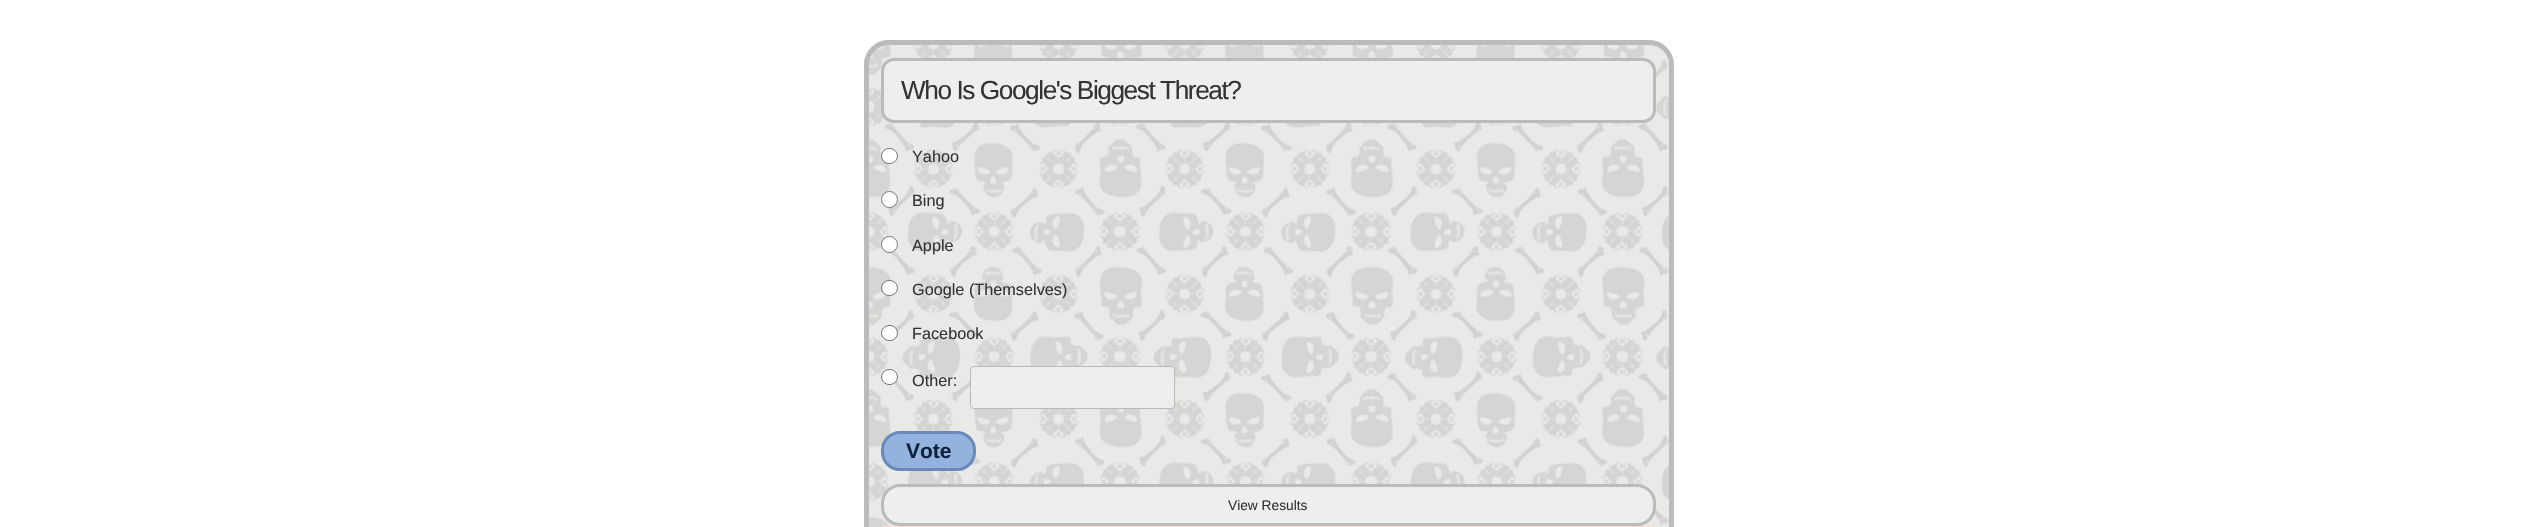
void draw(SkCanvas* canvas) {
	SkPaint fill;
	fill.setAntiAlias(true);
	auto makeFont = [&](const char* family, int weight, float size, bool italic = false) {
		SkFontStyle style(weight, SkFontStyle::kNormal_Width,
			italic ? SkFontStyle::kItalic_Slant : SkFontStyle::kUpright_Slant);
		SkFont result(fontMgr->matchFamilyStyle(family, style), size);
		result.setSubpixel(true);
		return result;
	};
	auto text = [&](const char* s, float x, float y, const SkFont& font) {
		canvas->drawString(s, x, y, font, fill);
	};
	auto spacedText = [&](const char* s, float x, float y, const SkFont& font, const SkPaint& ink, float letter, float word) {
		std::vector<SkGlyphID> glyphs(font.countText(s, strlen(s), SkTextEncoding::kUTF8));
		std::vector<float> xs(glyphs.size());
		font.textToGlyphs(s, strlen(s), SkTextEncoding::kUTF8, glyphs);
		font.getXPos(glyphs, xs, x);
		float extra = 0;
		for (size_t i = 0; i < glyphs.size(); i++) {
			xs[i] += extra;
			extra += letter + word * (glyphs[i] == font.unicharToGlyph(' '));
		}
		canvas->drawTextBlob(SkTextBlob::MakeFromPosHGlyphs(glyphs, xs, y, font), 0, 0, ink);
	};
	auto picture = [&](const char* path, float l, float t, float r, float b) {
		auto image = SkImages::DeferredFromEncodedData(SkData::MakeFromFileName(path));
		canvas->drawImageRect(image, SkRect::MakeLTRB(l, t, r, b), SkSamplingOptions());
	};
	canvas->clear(0xFFFFFFFF);
	picture("image0.png", 864, 40, 1674, 527);
	fill.setStyle(SkPaint::kStroke_Style);
	fill.setStrokeWidth(5);
	fill.setColor(0xFFBBBBBB);
	canvas->drawRoundRect(SkRect::MakeLTRB(866.5f, 42.5f, 1671.5f, 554.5f), 22.5f, 22.5f, fill);
	fill.setStyle(SkPaint::kFill_Style);
	fill.setColor(0xFFEEEEEE);
	canvas->drawRoundRect(SkRect::MakeLTRB(882.5f, 59.5f, 1654.5f, 121.5f), 11.5f, 11.5f, fill);
	fill.setStyle(SkPaint::kStroke_Style);
	fill.setStrokeWidth(3);
	fill.setColor(0xFFBBBBBB);
	canvas->drawRoundRect(SkRect::MakeLTRB(882.5f, 59.5f, 1654.5f, 121.5f), 11.5f, 11.5f, fill);
	fill.setStyle(SkPaint::kFill_Style);
	fill.setColor(0xFFFFFFFF);
	canvas->drawRoundRect(SkRect::MakeLTRB(881.5f, 148.5f, 897.5f, 163.5f), 7.5f, 7.5f, fill);
	fill.setStyle(SkPaint::kStroke_Style);
	fill.setStrokeWidth(1);
	fill.setColor(0xFF767676);
	canvas->drawRoundRect(SkRect::MakeLTRB(881.5f, 148.5f, 897.5f, 163.5f), 7.5f, 7.5f, fill);
	fill.setStyle(SkPaint::kFill_Style);
	fill.setColor(0xFFFFFFFF);
	canvas->drawCircle(889.5f, 199.5f, 8, fill);
	fill.setStyle(SkPaint::kStroke_Style);
	fill.setColor(0xFF767676);
	canvas->drawCircle(889.5f, 199.5f, 8, fill);
	fill.setStyle(SkPaint::kFill_Style);
	fill.setColor(0xFFFFFFFF);
	canvas->drawCircle(889.5f, 244.5f, 8, fill);
	fill.setStyle(SkPaint::kStroke_Style);
	fill.setColor(0xFF767676);
	canvas->drawCircle(889.5f, 244.5f, 8, fill);
	fill.setStyle(SkPaint::kFill_Style);
	fill.setColor(0xFFFFFFFF);
	canvas->drawRoundRect(SkRect::MakeLTRB(881.5f, 280.5f, 897.5f, 295.5f), 7.5f, 7.5f, fill);
	fill.setStyle(SkPaint::kStroke_Style);
	fill.setColor(0xFF767676);
	canvas->drawRoundRect(SkRect::MakeLTRB(881.5f, 280.5f, 897.5f, 295.5f), 7.5f, 7.5f, fill);
	fill.setStyle(SkPaint::kFill_Style);
	fill.setColor(0xFFFFFFFF);
	canvas->drawRoundRect(SkRect::MakeLTRB(881.5f, 325.5f, 897.5f, 340.5f), 7.5f, 7.5f, fill);
	fill.setStyle(SkPaint::kStroke_Style);
	fill.setColor(0xFF767676);
	canvas->drawRoundRect(SkRect::MakeLTRB(881.5f, 325.5f, 897.5f, 340.5f), 7.5f, 7.5f, fill);
	fill.setStyle(SkPaint::kFill_Style);
	fill.setColor(0xFFFFFFFF);
	canvas->drawRoundRect(SkRect::MakeLTRB(881.5f, 369.5f, 897.5f, 384.5f), 7.5f, 7.5f, fill);
	fill.setStyle(SkPaint::kStroke_Style);
	fill.setColor(0xFF767676);
	canvas->drawRoundRect(SkRect::MakeLTRB(881.5f, 369.5f, 897.5f, 384.5f), 7.5f, 7.5f, fill);
	fill.setStyle(SkPaint::kFill_Style);
	fill.setColor(0xFFEEEEEE);
	canvas->drawRoundRect(SkRect::MakeLTRB(970.5f, 366.5f, 1174.5f, 408.5f), 3.5f, 3.5f, fill);
	fill.setStyle(SkPaint::kStroke_Style);
	fill.setColor(0xFFBAB9B9);
	canvas->drawRoundRect(SkRect::MakeLTRB(970.5f, 366.5f, 1174.5f, 408.5f), 3.5f, 3.5f, fill);
	fill.setStyle(SkPaint::kFill_Style);
	fill.setColor(0xFF93B2DE);
	canvas->drawRoundRect(SkRect::MakeLTRB(882.5f, 432.5f, 974.5f, 469.5f), 17.5f, 17.5f, fill);
	fill.setStyle(SkPaint::kStroke_Style);
	fill.setStrokeWidth(3);
	fill.setColor(0xFF688ABA);
	canvas->drawRoundRect(SkRect::MakeLTRB(882.5f, 432.5f, 974.5f, 469.5f), 17.5f, 17.5f, fill);
	fill.setStyle(SkPaint::kFill_Style);
	fill.setColor(0xFFEEEEEE);
	canvas->drawRoundRect(SkRect::MakeLTRB(882.5f, 485.5f, 1654.5f, 524.5f), 17.5f, 17.5f, fill);
	fill.setStyle(SkPaint::kStroke_Style);
	fill.setColor(0xFFBBBBBB);
	canvas->drawRoundRect(SkRect::MakeLTRB(882.5f, 485.5f, 1654.5f, 524.5f), 17.5f, 17.5f, fill);
	fill.setStrokeWidth(1);
	fill.setColor(0xFFFFDCDC);
	canvas->drawRoundRect(SkRect::MakeLTRB(881.5f, 526.5f, 1655.5f, 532.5f), 4.5f, 4.5f, fill);
	auto font1 = makeFont("Liberation Sans", 400, 26.25f);
	fill.setStyle(SkPaint::kFill_Style);
	fill.setColor(0xFF333333);
	spacedText("Who Is Google's Biggest Threat?", 901, 99, font1, fill, -1.45f, 0);
	auto font2 = makeFont("Liberation Sans", 400, 16.25f);
	text("Yahoo", 912, 162, font2);
	text("Bing", 912, 206, font2);
	text("Apple", 912, 251, font2);
	text("Google (Themselves)", 912, 295, font2);
	text("Facebook", 912, 339, font2);
	text("Other:", 912, 386, font2);
	auto font3 = makeFont("Liberation Sans", 700, 21);
	fill.setColor(0xFF0F213C);
	text("Vote", 906, 458, font3);
	auto font4 = makeFont("Liberation Sans", 400, 13.75f);
	fill.setColor(0xFF333333);
	text("View Results", 1228, 510, font4);
}
